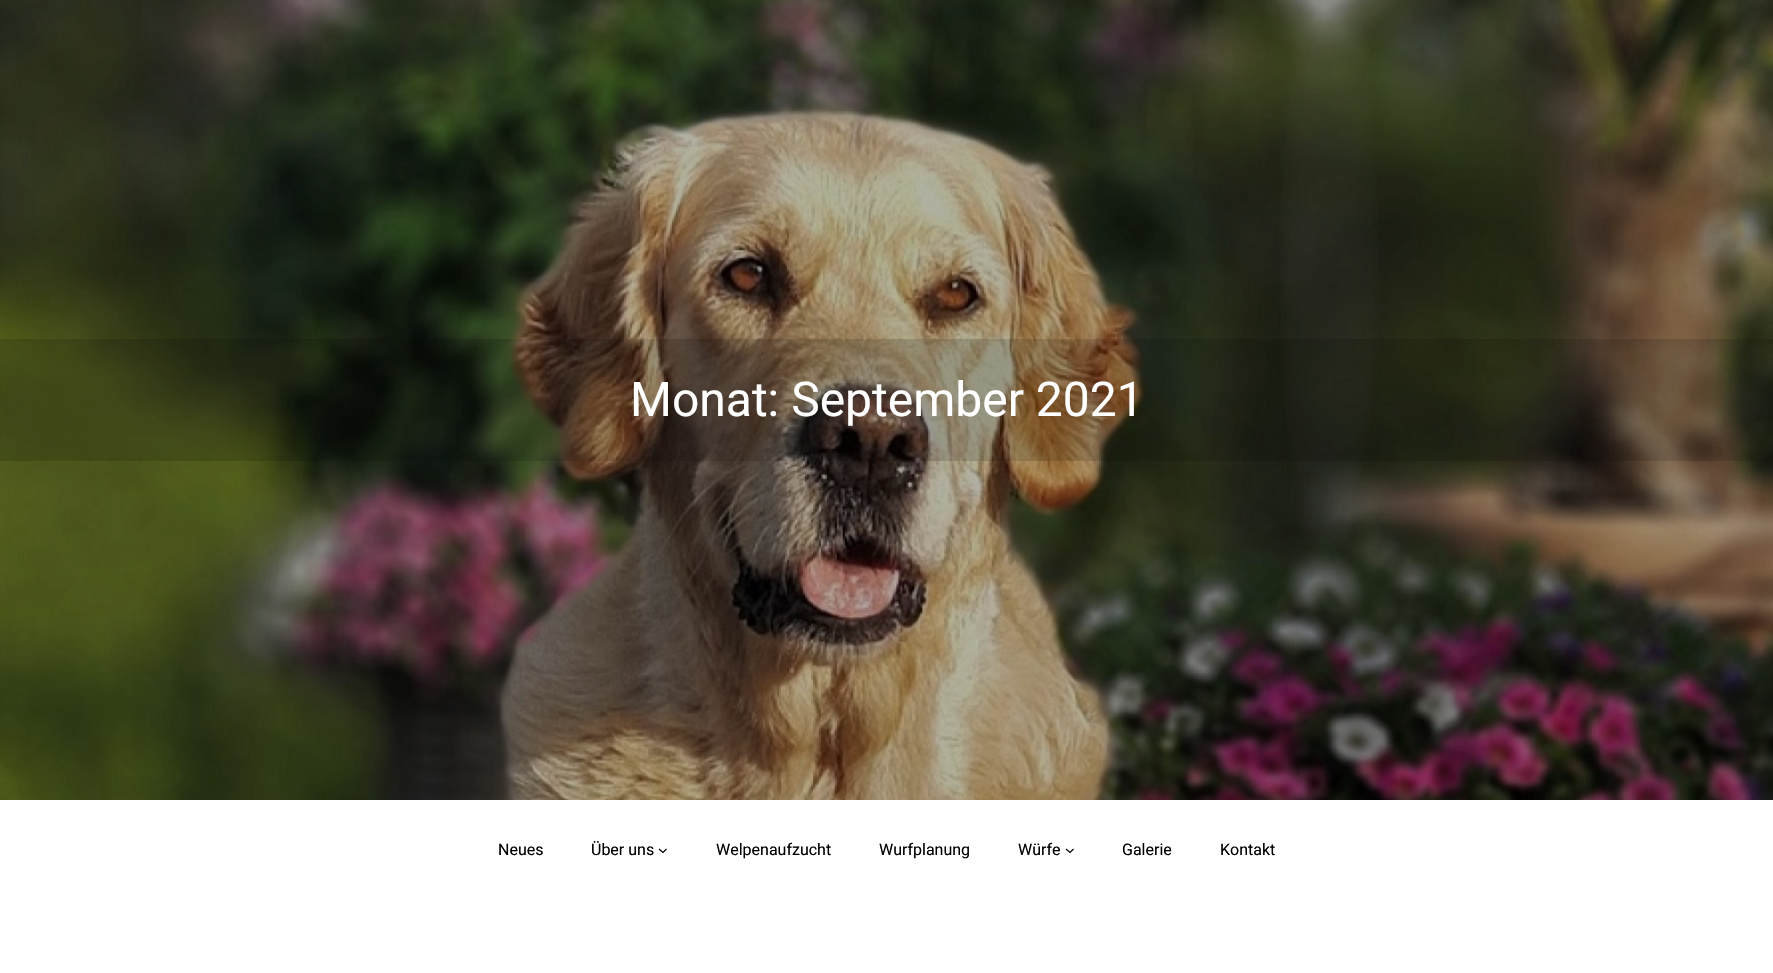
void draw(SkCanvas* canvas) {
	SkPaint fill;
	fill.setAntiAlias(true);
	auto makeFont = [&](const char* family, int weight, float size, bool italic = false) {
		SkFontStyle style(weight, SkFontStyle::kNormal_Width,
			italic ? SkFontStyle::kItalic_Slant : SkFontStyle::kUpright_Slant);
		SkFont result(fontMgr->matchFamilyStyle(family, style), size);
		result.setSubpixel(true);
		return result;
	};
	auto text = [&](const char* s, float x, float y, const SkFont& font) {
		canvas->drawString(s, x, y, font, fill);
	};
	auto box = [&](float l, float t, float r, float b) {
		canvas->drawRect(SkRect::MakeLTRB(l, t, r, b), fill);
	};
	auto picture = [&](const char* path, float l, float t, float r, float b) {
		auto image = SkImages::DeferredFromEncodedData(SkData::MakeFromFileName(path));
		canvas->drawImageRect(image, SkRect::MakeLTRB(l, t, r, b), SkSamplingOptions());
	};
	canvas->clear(0xFFFFFFFF);
	picture("image0.png", 0, 0, 1773, 800);
	fill.setColor(0x24000000);
	box(0, 339, 1773, 461);
	fill.setStyle(SkPaint::kStroke_Style);
	fill.setStrokeWidth(1.2f);
	fill.setColor(0xFF000000);
	canvas->drawPath(SkPathBuilder().moveTo(659, 849).lineTo(663, 852.5f).lineTo(666.5f, 849).detach(), fill);
	canvas->drawPath(SkPathBuilder().moveTo(1066, 849).lineTo(1070, 852.5f).lineTo(1073.5f, 849).detach(), fill);
	auto font1 = makeFont("Roboto", 400, 48);
	fill.setStyle(SkPaint::kFill_Style);
	fill.setColor(0xFFFFFFFF);
	text("Monat: September 2021", 630, 416, font1);
	auto font2 = makeFont("Roboto", 400, 16);
	fill.setColor(0xFF000000);
	text("Neues", 498, 855, font2);
	text("Über uns", 591, 855, font2);
	text("Welpenaufzucht", 716, 855, font2);
	text("Wurfplanung", 879, 855, font2);
	text("Würfe", 1018, 855, font2);
	text("Galerie", 1122, 855, font2);
	text("Kontakt", 1220, 855, font2);
}
